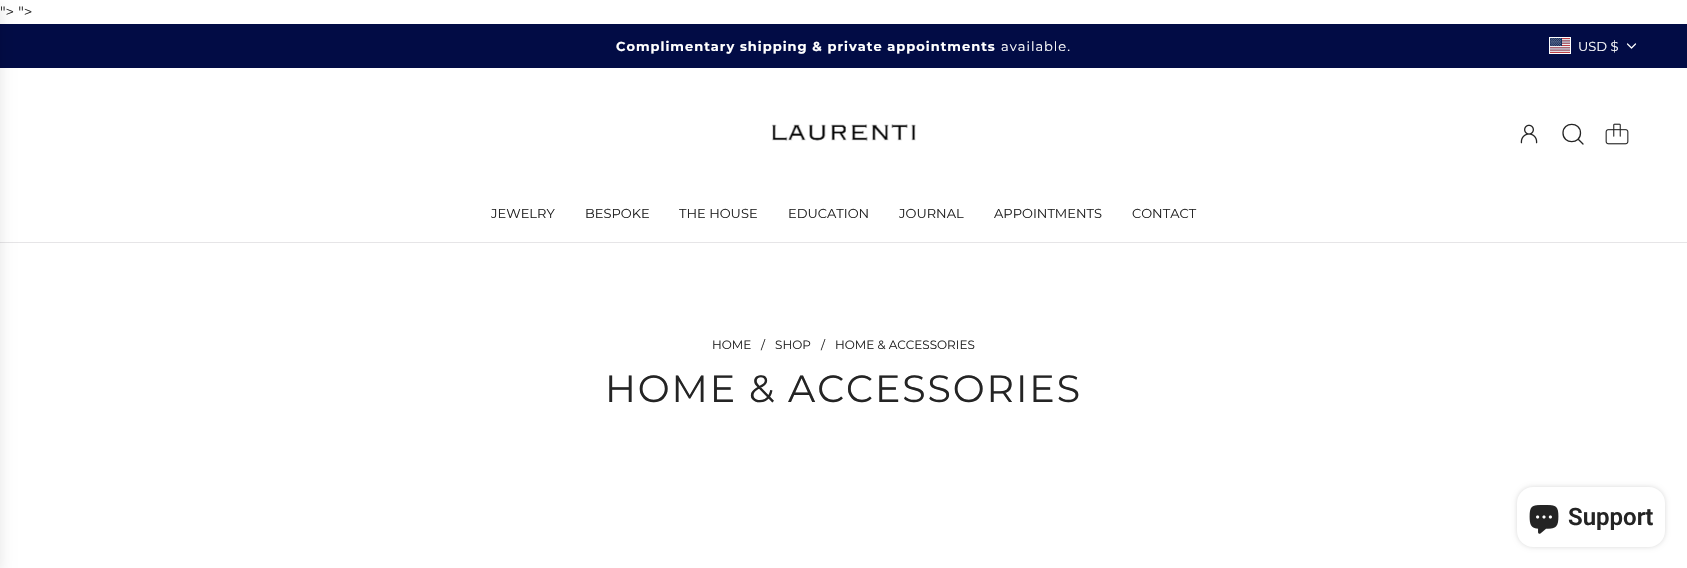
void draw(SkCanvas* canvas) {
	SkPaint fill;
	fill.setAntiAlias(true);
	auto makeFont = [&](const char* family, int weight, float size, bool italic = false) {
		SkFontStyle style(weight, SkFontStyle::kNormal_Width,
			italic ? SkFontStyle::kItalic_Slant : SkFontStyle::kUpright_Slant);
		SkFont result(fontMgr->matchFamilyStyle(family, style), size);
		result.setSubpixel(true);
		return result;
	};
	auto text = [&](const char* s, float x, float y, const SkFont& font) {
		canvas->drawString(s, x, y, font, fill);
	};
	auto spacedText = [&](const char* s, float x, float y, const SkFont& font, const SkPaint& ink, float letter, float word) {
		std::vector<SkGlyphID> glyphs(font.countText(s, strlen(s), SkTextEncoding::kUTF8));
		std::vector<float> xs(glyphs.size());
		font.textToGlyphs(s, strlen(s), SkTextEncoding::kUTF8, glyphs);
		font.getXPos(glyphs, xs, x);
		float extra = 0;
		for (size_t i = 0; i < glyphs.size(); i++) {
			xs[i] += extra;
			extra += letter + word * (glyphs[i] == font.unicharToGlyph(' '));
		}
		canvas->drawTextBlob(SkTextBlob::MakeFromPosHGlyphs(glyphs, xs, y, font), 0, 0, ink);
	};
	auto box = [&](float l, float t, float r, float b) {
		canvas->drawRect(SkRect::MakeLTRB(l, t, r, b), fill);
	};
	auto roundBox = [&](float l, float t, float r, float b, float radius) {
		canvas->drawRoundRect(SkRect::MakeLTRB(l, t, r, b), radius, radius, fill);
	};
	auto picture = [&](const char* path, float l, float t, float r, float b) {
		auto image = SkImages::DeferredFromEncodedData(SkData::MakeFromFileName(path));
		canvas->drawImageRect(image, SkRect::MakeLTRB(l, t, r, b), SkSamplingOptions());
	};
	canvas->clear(0xFFFFFFFF);
	fill.setColor(0xFF020C45);
	box(0, 24, 1687, 68);
	fill.setStyle(SkPaint::kStroke_Style);
	fill.setStrokeWidth(1);
	fill.setColor(0xFFFFFFFF);
	canvas->drawRect(SkRect::MakeLTRB(1549.5f, 37.5f, 1570.5f, 53.5f), fill);
	picture("image0.png", 1550, 38, 1570, 53);
	fill.setStrokeWidth(1.2f);
	fill.setStrokeCap(SkPaint::kRound_Cap);
	fill.setStrokeJoin(SkPaint::kRound_Join);
	canvas->drawPath(SkPathBuilder().moveTo(1627.5f, 44).lineTo(1631.5f, 48).lineTo(1635.5f, 44).detach(), fill);
	fill.setStyle(SkPaint::kFill_Style);
	fill.setColor(0xFFE6E5E7);
	box(0, 242, 1687, 243);
	fill.setColor(0x1A000000);
	fill.setMaskFilter(SkMaskFilter::MakeBlur(kNormal_SkBlurStyle, 7.5f));
	canvas->drawRect(SkRect::MakeLTRB(-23, 5, 0, 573), fill);
	fill.setMaskFilter(nullptr);
	picture("image1.png", 771, 124, 916, 142);
	picture("image2.png", 1520, 124, 1538, 144);
	fill.setStyle(SkPaint::kStroke_Style);
	fill.setStrokeWidth(1.3f);
	fill.setColor(0xFF242424);
	canvas->drawPath(SkPathBuilder().moveTo(1578.5f, 139.5f).lineTo(1583, 144).moveTo(1563, 133).cubicTo(1563, 144.5f, 1580.5f, 144.5f, 1580.5f, 133).cubicTo(1580.5f, 121.5f, 1563, 121.5f, 1563, 133).close().detach(), fill);
	picture("image3.png", 1605, 123, 1629, 145);
	fill.setStyle(SkPaint::kFill_Style);
	fill.setColor(0x26000000);
	fill.setMaskFilter(SkMaskFilter::MakeBlur(kNormal_SkBlurStyle, 2.5f));
	canvas->drawRoundRect(SkRect::MakeLTRB(1517, 487, 1665, 547), 16, 16, fill);
	fill.setMaskFilter(nullptr);
	fill.setColor(0xFFFFFFFF);
	roundBox(1517, 487, 1665, 547, 16);
	picture("image4.png", 1529, 505, 1559, 534);
	auto font1 = makeFont("Montserrat", 400, 15);
	fill.setColor(0xFF242424);
	text("\"> \">", 0, 17, font1);
	auto font2 = makeFont("Montserrat", 700, 13);
	fill.setColor(0xFFFFFFFF);
	spacedText("Complimentary shipping & private appointments", 616, 51, font2, fill, 1, 0);
	auto font3 = makeFont("Montserrat", 400, 13);
	spacedText("available.", 1001, 51, font3, fill, 1, 0);
	text("USD $", 1578, 51, font3);
	fill.setColor(0xFF242424);
	text("JEWELRY", 491, 218, font3);
	text("BESPOKE", 585, 218, font3);
	text("THE HOUSE", 679, 218, font3);
	text("EDUCATION", 788, 218, font3);
	text("JOURNAL", 899, 218, font3);
	text("APPOINTMENTS", 994, 218, font3);
	text("CONTACT", 1132, 218, font3);
	auto font4 = makeFont("Montserrat", 400, 12);
	text("HOME", 712, 349, font4);
	text("/", 761, 349, font4);
	text("SHOP", 775, 349, font4);
	text("/", 821, 349, font4);
	text("HOME & ACCESSORIES", 835, 349, font4);
	auto font5 = makeFont("Montserrat", 400, 38);
	spacedText("HOME & ACCESSORIES", 605, 402, font5, fill, 1.9f, 0);
	auto font6 = makeFont("Roboto", 600, 24);
	text("Support", 1568, 525, font6);
}
